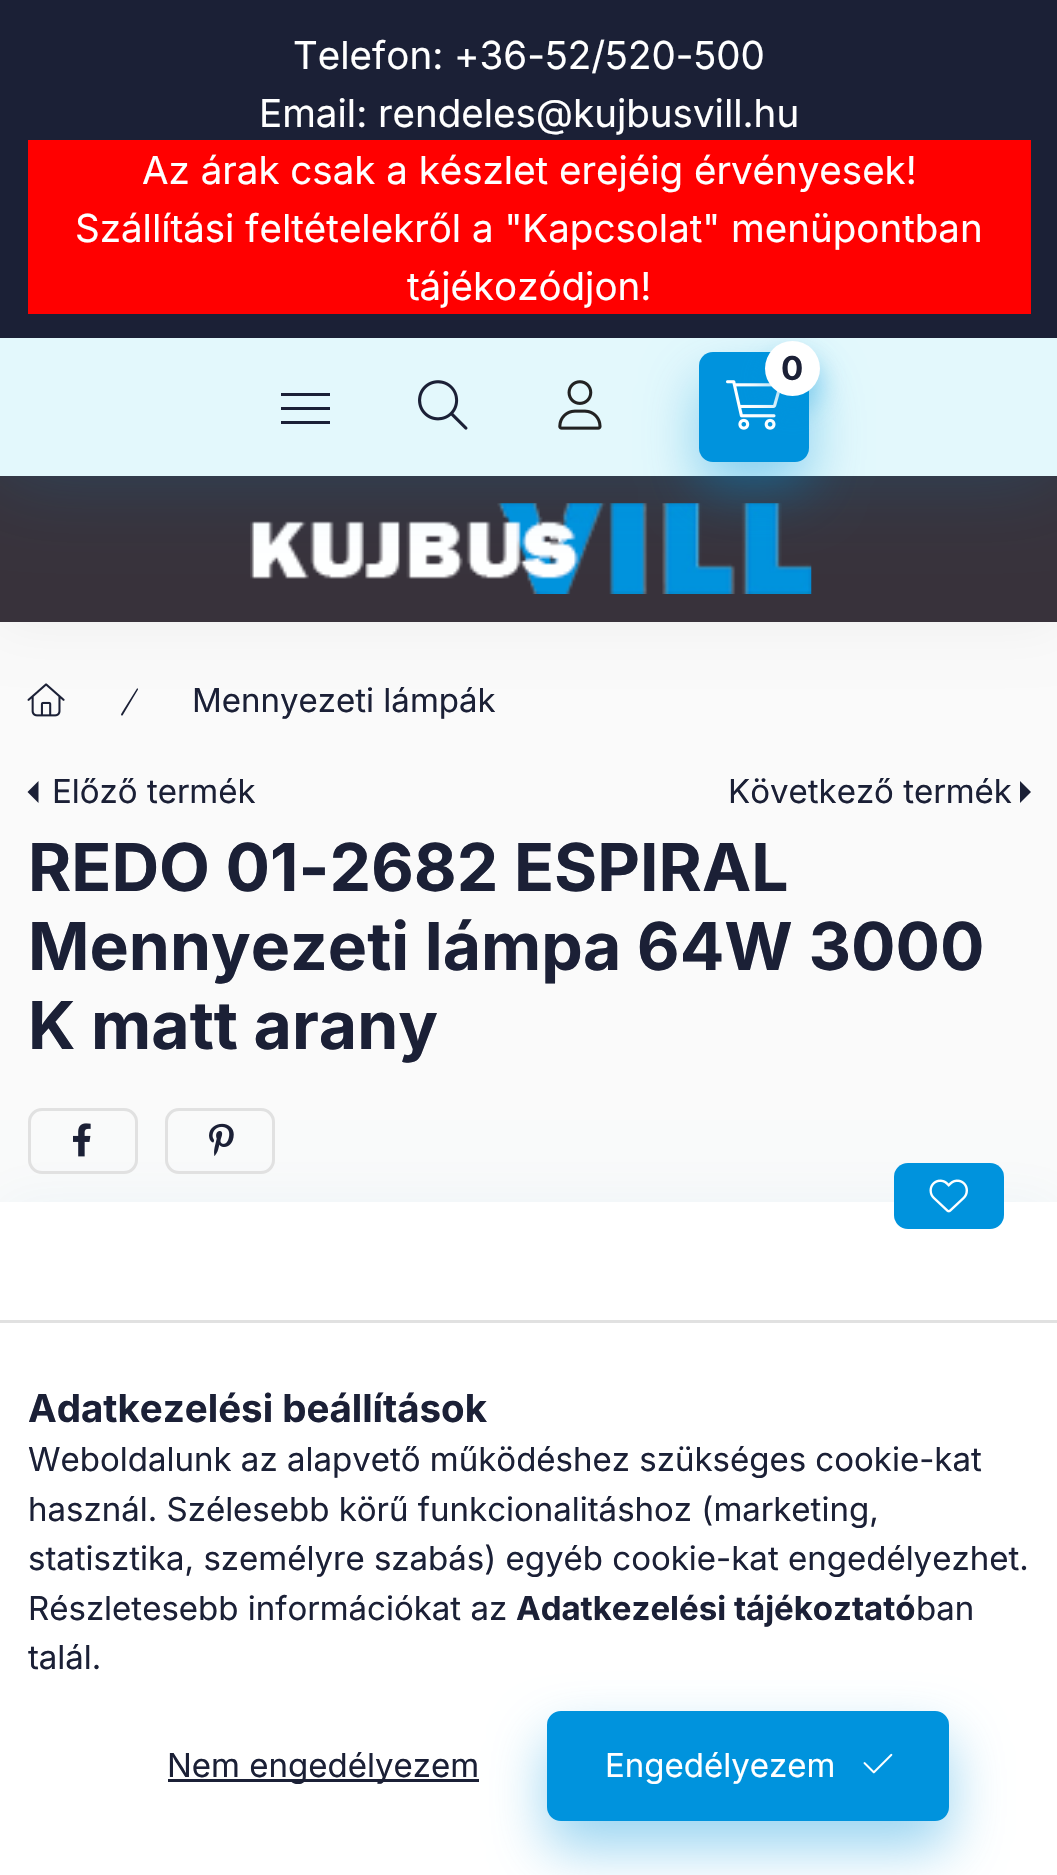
void draw(SkCanvas* canvas) {
	SkPaint fill;
	fill.setAntiAlias(true);
	auto makeFont = [&](const char* family, int weight, float size, bool italic = false) {
		SkFontStyle style(weight, SkFontStyle::kNormal_Width,
			italic ? SkFontStyle::kItalic_Slant : SkFontStyle::kUpright_Slant);
		SkFont result(fontMgr->matchFamilyStyle(family, style), size);
		result.setSubpixel(true);
		return result;
	};
	auto text = [&](const char* s, float x, float y, const SkFont& font) {
		canvas->drawString(s, x, y, font, fill);
	};
	auto box = [&](float l, float t, float r, float b) {
		canvas->drawRect(SkRect::MakeLTRB(l, t, r, b), fill);
	};
	auto roundBox = [&](float l, float t, float r, float b, float radius) {
		canvas->drawRoundRect(SkRect::MakeLTRB(l, t, r, b), radius, radius, fill);
	};
	auto picture = [&](const char* path, float l, float t, float r, float b) {
		auto image = SkImages::DeferredFromEncodedData(SkData::MakeFromFileName(path));
		canvas->drawImageRect(image, SkRect::MakeLTRB(l, t, r, b), SkSamplingOptions());
	};
	canvas->clear(0xFFFAFAFA);
	picture("image4.png", 27, 683, 65, 717);
	fill.setColor(0xFF1B2036);
	canvas->drawPath(SkPathBuilder().moveTo(138, 688.5f).lineTo(137, 688.5f).lineTo(123.5f, 710).cubicTo(123, 711.5f, 120, 714.5f, 121.5f, 715.5f).lineTo(122, 715.5f).lineTo(122.5f, 715.5f).lineTo(138, 689.5f).close().detach(), fill);
	fill.setColor(0x0D000000);
	fill.setMaskFilter(SkMaskFilter::MakeBlur(kNormal_SkBlurStyle, 27.5f));
	canvas->drawRect(SkRect::MakeLTRB(0, 476, 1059, 622), fill);
	fill.setMaskFilter(nullptr);
	fill.setColor(0xFF38323B);
	box(0, 476, 1057, 622);
	picture("image3.png", 250, 503, 812, 594);
	fill.setColor(0x330093DD);
	fill.setMaskFilter(SkMaskFilter::MakeBlur(kNormal_SkBlurStyle, 41));
	canvas->drawRect(SkRect::MakeLTRB(0, 338, 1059, 476), fill);
	fill.setMaskFilter(nullptr);
	fill.setColor(0xFFE3F8FC);
	box(0, 338, 1057, 476);
	fill.setColor(0x660093DD);
	fill.setMaskFilter(SkMaskFilter::MakeBlur(kNormal_SkBlurStyle, 27.5f));
	canvas->drawRoundRect(SkRect::MakeLTRB(699, 380, 809, 490), 14, 14, fill);
	fill.setMaskFilter(nullptr);
	fill.setColor(0xFF0093DD);
	roundBox(699, 352, 809, 462, 14);
	picture("image0.png", 726, 380, 780, 430);
	fill.setColor(0x660093DD);
	fill.setMaskFilter(SkMaskFilter::MakeBlur(kNormal_SkBlurStyle, 14));
	canvas->drawRoundRect(SkRect::MakeLTRB(765, 355, 820, 410), 27.5f, 27.5f, fill);
	fill.setMaskFilter(nullptr);
	fill.setColor(0xFF1B2036);
	box(0, 0, 1057, 338);
	fill.setColor(0xFFFF0000);
	box(28, 140, 1031, 314);
	fill.setColor(0xFFFFFFFF);
	canvas->drawCircle(792.5f, 368.5f, 27.5f, fill);
	fill.setColor(0xFF1B2036);
	box(281, 393, 330, 396);
	box(281, 407, 330, 410);
	box(281, 421, 330, 424);
	picture("image1.png", 418, 380, 468, 430);
	picture("image2.png", 558, 380, 602, 430);
	canvas->drawPath(SkPathBuilder().moveTo(38.5f, 803).lineTo(38.5f, 781).lineTo(27.5f, 792).close().detach(), fill);
	canvas->drawPath(SkPathBuilder().moveTo(1020, 803).lineTo(1020, 781).lineTo(1031, 792).close().detach(), fill);
	fill.setColor(0x0D0093DD);
	fill.setMaskFilter(SkMaskFilter::MakeBlur(kNormal_SkBlurStyle, 27.5f));
	canvas->drawRect(SkRect::MakeLTRB(0, 1202, 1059, 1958), fill);
	fill.setMaskFilter(nullptr);
	fill.setStyle(SkPaint::kStroke_Style);
	fill.setStrokeWidth(3);
	fill.setColor(0xFFE1E1E1);
	canvas->drawRoundRect(SkRect::MakeLTRB(29.5f, 1109.5f, 136.5f, 1172.5f), 12.5f, 12.5f, fill);
	picture("image5.png", 73, 1123, 91, 1157);
	canvas->drawRoundRect(SkRect::MakeLTRB(166.5f, 1109.5f, 273.5f, 1172.5f), 12.5f, 12.5f, fill);
	picture("image6.png", 209, 1123, 234, 1156);
	fill.setStyle(SkPaint::kFill_Style);
	fill.setColor(0xFFFFFFFF);
	box(0, 1202, 1057, 1320);
	fill.setColor(0xFF0093DD);
	roundBox(894, 1163, 1004, 1229, 14);
	picture("image7.png", 929, 1179, 968, 1213);
	fill.setColor(0xFFFFFFFF);
	box(0, 1323, 1057, 1875);
	fill.setColor(0xFFE1E1E1);
	box(0, 1320, 1057, 1323);
	fill.setColor(0xFF1B2036);
	box(168, 1779, 479, 1782);
	fill.setColor(0x660093DD);
	fill.setMaskFilter(SkMaskFilter::MakeBlur(kNormal_SkBlurStyle, 27.5f));
	canvas->drawRoundRect(SkRect::MakeLTRB(547, 1738, 949, 1848), 14, 14, fill);
	fill.setMaskFilter(nullptr);
	fill.setColor(0xFF0093DD);
	canvas->drawRoundRect(SkRect::MakeLTRB(548.5f, 1712.5f, 947.5f, 1819.5f), 12.5f, 12.5f, fill);
	fill.setStyle(SkPaint::kStroke_Style);
	canvas->drawRoundRect(SkRect::MakeLTRB(548.5f, 1712.5f, 947.5f, 1819.5f), 12.5f, 12.5f, fill);
	picture("image8.png", 863, 1753, 893, 1774);
	auto font1 = makeFont("Inter", 400, 38.5f);
	fill.setStyle(SkPaint::kFill_Style);
	fill.setColor(0xFFFFFFFF);
	text("Telefon: +36-52/520-500", 293, 69, font1);
	text("Email: rendeles@kujbusvill.hu", 259, 127, font1);
	text("Az árak csak a készlet erejéig érvényesek!", 142, 184, font1);
	text("Szállítási feltételekről a \"Kapcsolat\" menüpontban", 75, 242, font1);
	text("tájékozódjon!", 407, 300, font1);
	auto font2 = makeFont("Inter", 700, 33);
	fill.setColor(0xFF1B2036);
	text("0", 781, 380, font2);
	auto font3 = makeFont("Inter", 400, 33);
	text("Mennyezeti lámpák", 192, 712, font3);
	text("Előző termék", 52, 803, font3);
	text("Következő termék", 728, 803, font3);
	auto font4 = makeFont("Inter", 700, 66);
	text("REDO 01-2682 ESPIRAL", 28, 891, font4);
	text("Mennyezeti lámpa 64W 3000", 28, 970, font4);
	text("K matt arany", 28, 1049, font4);
	auto font5 = makeFont("Inter", 700, 38.5f);
	text("Adatkezelési beállítások", 28, 1422, font5);
	text("Weboldalunk az alapvető működéshez szükséges cookie-kat", 28, 1471, font3);
	text("használ. Szélesebb körű funkcionalitáshoz (marketing,", 28, 1521, font3);
	text("statisztika, személyre szabás) egyéb cookie-kat engedélyezhet.", 28, 1570, font3);
	text("Részletesebb információkat az", 28, 1620, font3);
	text("Adatkezelési tájékoztató", 516, 1620, font2);
	text("ban", 916, 1620, font3);
	text("talál.", 28, 1669, font3);
	text("Nem engedélyezem", 167, 1777, font3);
	fill.setColor(0xFFFFFFFF);
	text("Engedélyezem", 605, 1777, font3);
}
